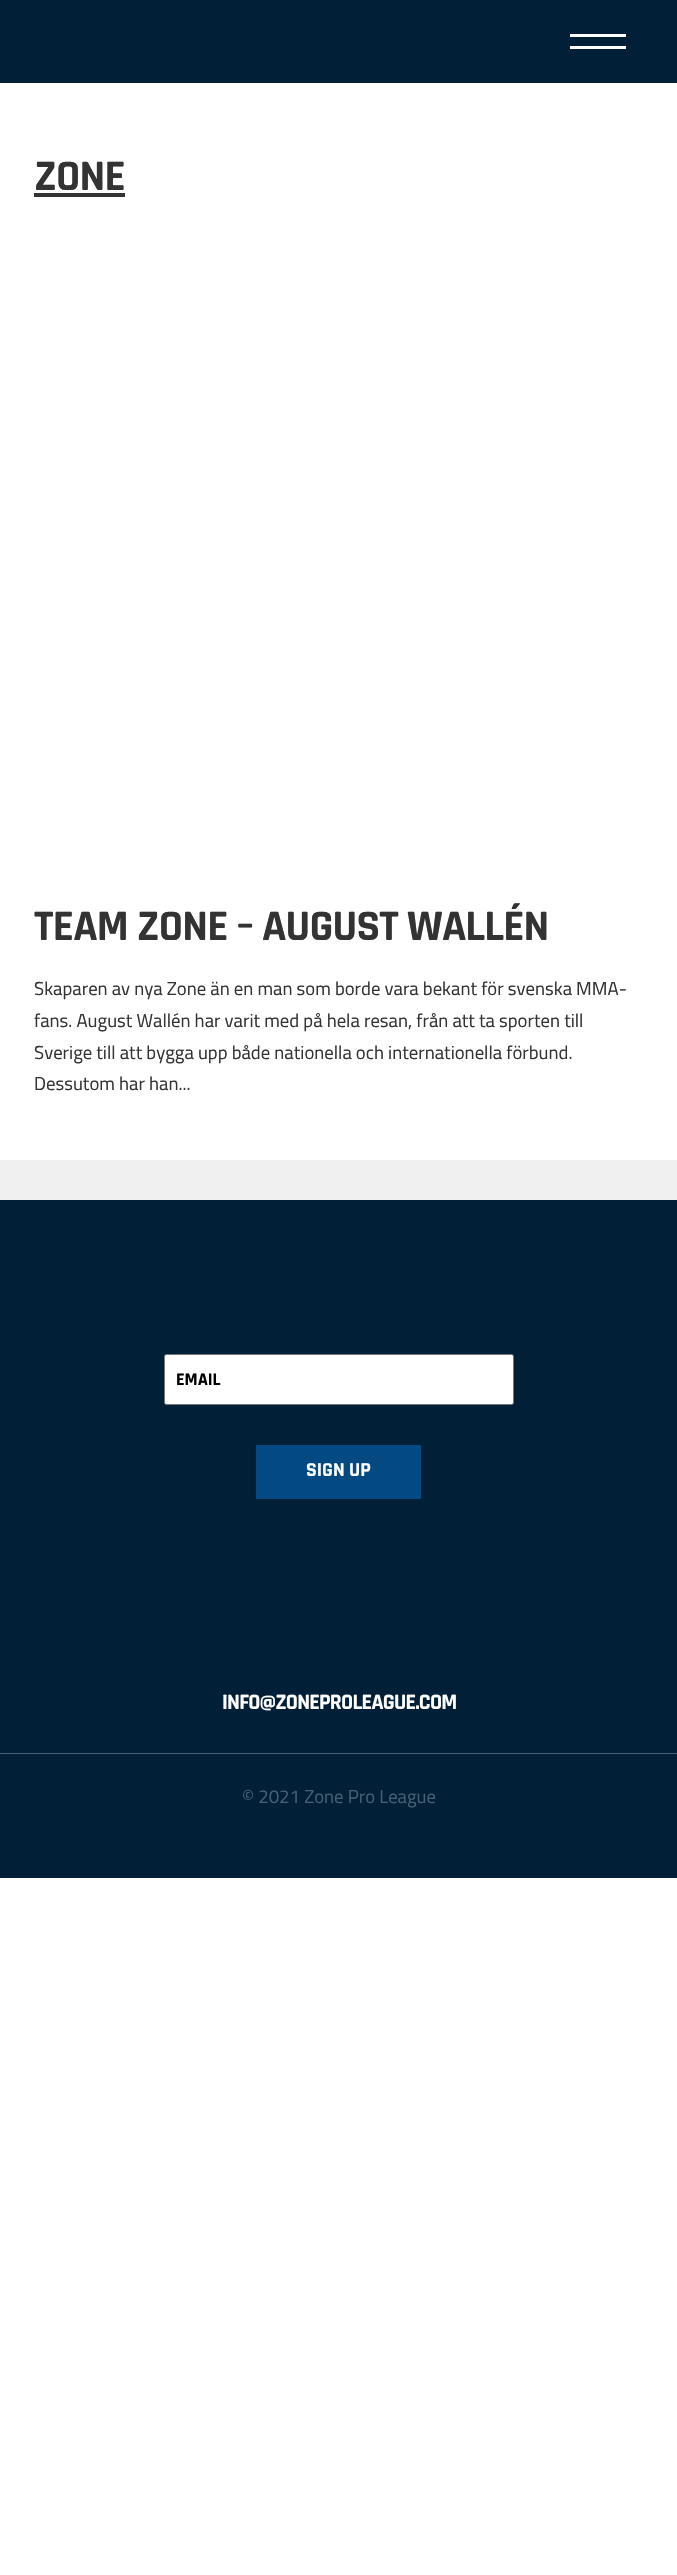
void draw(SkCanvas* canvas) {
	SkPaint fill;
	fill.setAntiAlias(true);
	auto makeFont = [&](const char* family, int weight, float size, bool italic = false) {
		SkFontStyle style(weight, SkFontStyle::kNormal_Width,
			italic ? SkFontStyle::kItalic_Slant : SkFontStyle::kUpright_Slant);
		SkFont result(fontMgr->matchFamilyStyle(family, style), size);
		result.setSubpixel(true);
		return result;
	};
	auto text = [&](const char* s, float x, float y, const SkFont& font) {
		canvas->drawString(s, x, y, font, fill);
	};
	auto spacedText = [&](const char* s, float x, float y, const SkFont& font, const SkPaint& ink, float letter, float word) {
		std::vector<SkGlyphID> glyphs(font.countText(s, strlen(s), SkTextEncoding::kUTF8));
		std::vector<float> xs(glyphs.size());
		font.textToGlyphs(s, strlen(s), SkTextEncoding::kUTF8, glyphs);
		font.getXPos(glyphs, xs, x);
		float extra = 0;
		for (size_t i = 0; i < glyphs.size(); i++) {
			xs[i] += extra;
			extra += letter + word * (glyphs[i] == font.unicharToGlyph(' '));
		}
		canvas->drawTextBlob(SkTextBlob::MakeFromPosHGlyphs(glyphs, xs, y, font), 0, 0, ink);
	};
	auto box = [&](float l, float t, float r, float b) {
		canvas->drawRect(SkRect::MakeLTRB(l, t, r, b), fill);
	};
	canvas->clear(0xFFFFFFFF);
	fill.setColor(0xFF011F36);
	box(0, 0, 677, 83);
	fill.setColor(0xFFFFFFFF);
	box(570, 34, 626, 37);
	box(570, 46, 626, 49);
	fill.setColor(0xFF333333);
	box(34, 193, 125, 197);
	fill.setColor(0xFFF0F0F0);
	box(0, 1160, 677, 1200);
	fill.setColor(0xFF011F36);
	box(0, 1200, 677, 1878);
	fill.setColor(0xFFFFFFFF);
	canvas->drawRoundRect(SkRect::MakeLTRB(164.5f, 1354.5f, 513.5f, 1404.5f), 2, 2, fill);
	fill.setStyle(SkPaint::kStroke_Style);
	fill.setStrokeWidth(1);
	fill.setColor(0xFF767676);
	canvas->drawRoundRect(SkRect::MakeLTRB(164.5f, 1354.5f, 513.5f, 1404.5f), 2, 2, fill);
	fill.setStyle(SkPaint::kFill_Style);
	fill.setColor(0xFF024A81);
	box(256, 1445, 421, 1499);
	fill.setColor(0xFF446074);
	box(0, 1753, 677, 1754);
	auto font1 = makeFont("Rajdhani", 700, 44);
	fill.setColor(0xFF333333);
	spacedText("ZONE", 34, 190, font1, fill, -0.8f, 0);
	spacedText("TEAM ZONE – AUGUST WALLÉN", 34, 940, font1, fill, -0.8f, 0);
	auto font2 = makeFont("Titillium Web", 400, 18.7f);
	text("Skaparen av nya Zone än en man som borde vara bekant för svenska MMA-", 34, 995, font2);
	text("fans. August Wallén har varit med på hela resan, från att ta sporten till", 34, 1027, font2);
	text("Sverige till att bygga upp både nationella och internationella förbund.", 34, 1059, font2);
	text("Dessutom har han...", 34, 1090, font2);
	auto font3 = makeFont("Rajdhani", 700, 18);
	fill.setColor(0xFF000000);
	text("EMAIL", 176, 1385, font3);
	auto font4 = makeFont("Rajdhani", 700, 20);
	fill.setColor(0xFFFFFFFF);
	text("SIGN UP", 306, 1476, font4);
	auto font5 = makeFont("Rajdhani", 700, 22);
	spacedText("INFO@ZONEPROLEAGUE.COM", 222, 1709, font5, fill, -0.8f, 0);
	fill.setColor(0xFF446074);
	text("© 2021 Zone Pro League", 242, 1803, font2);
}
